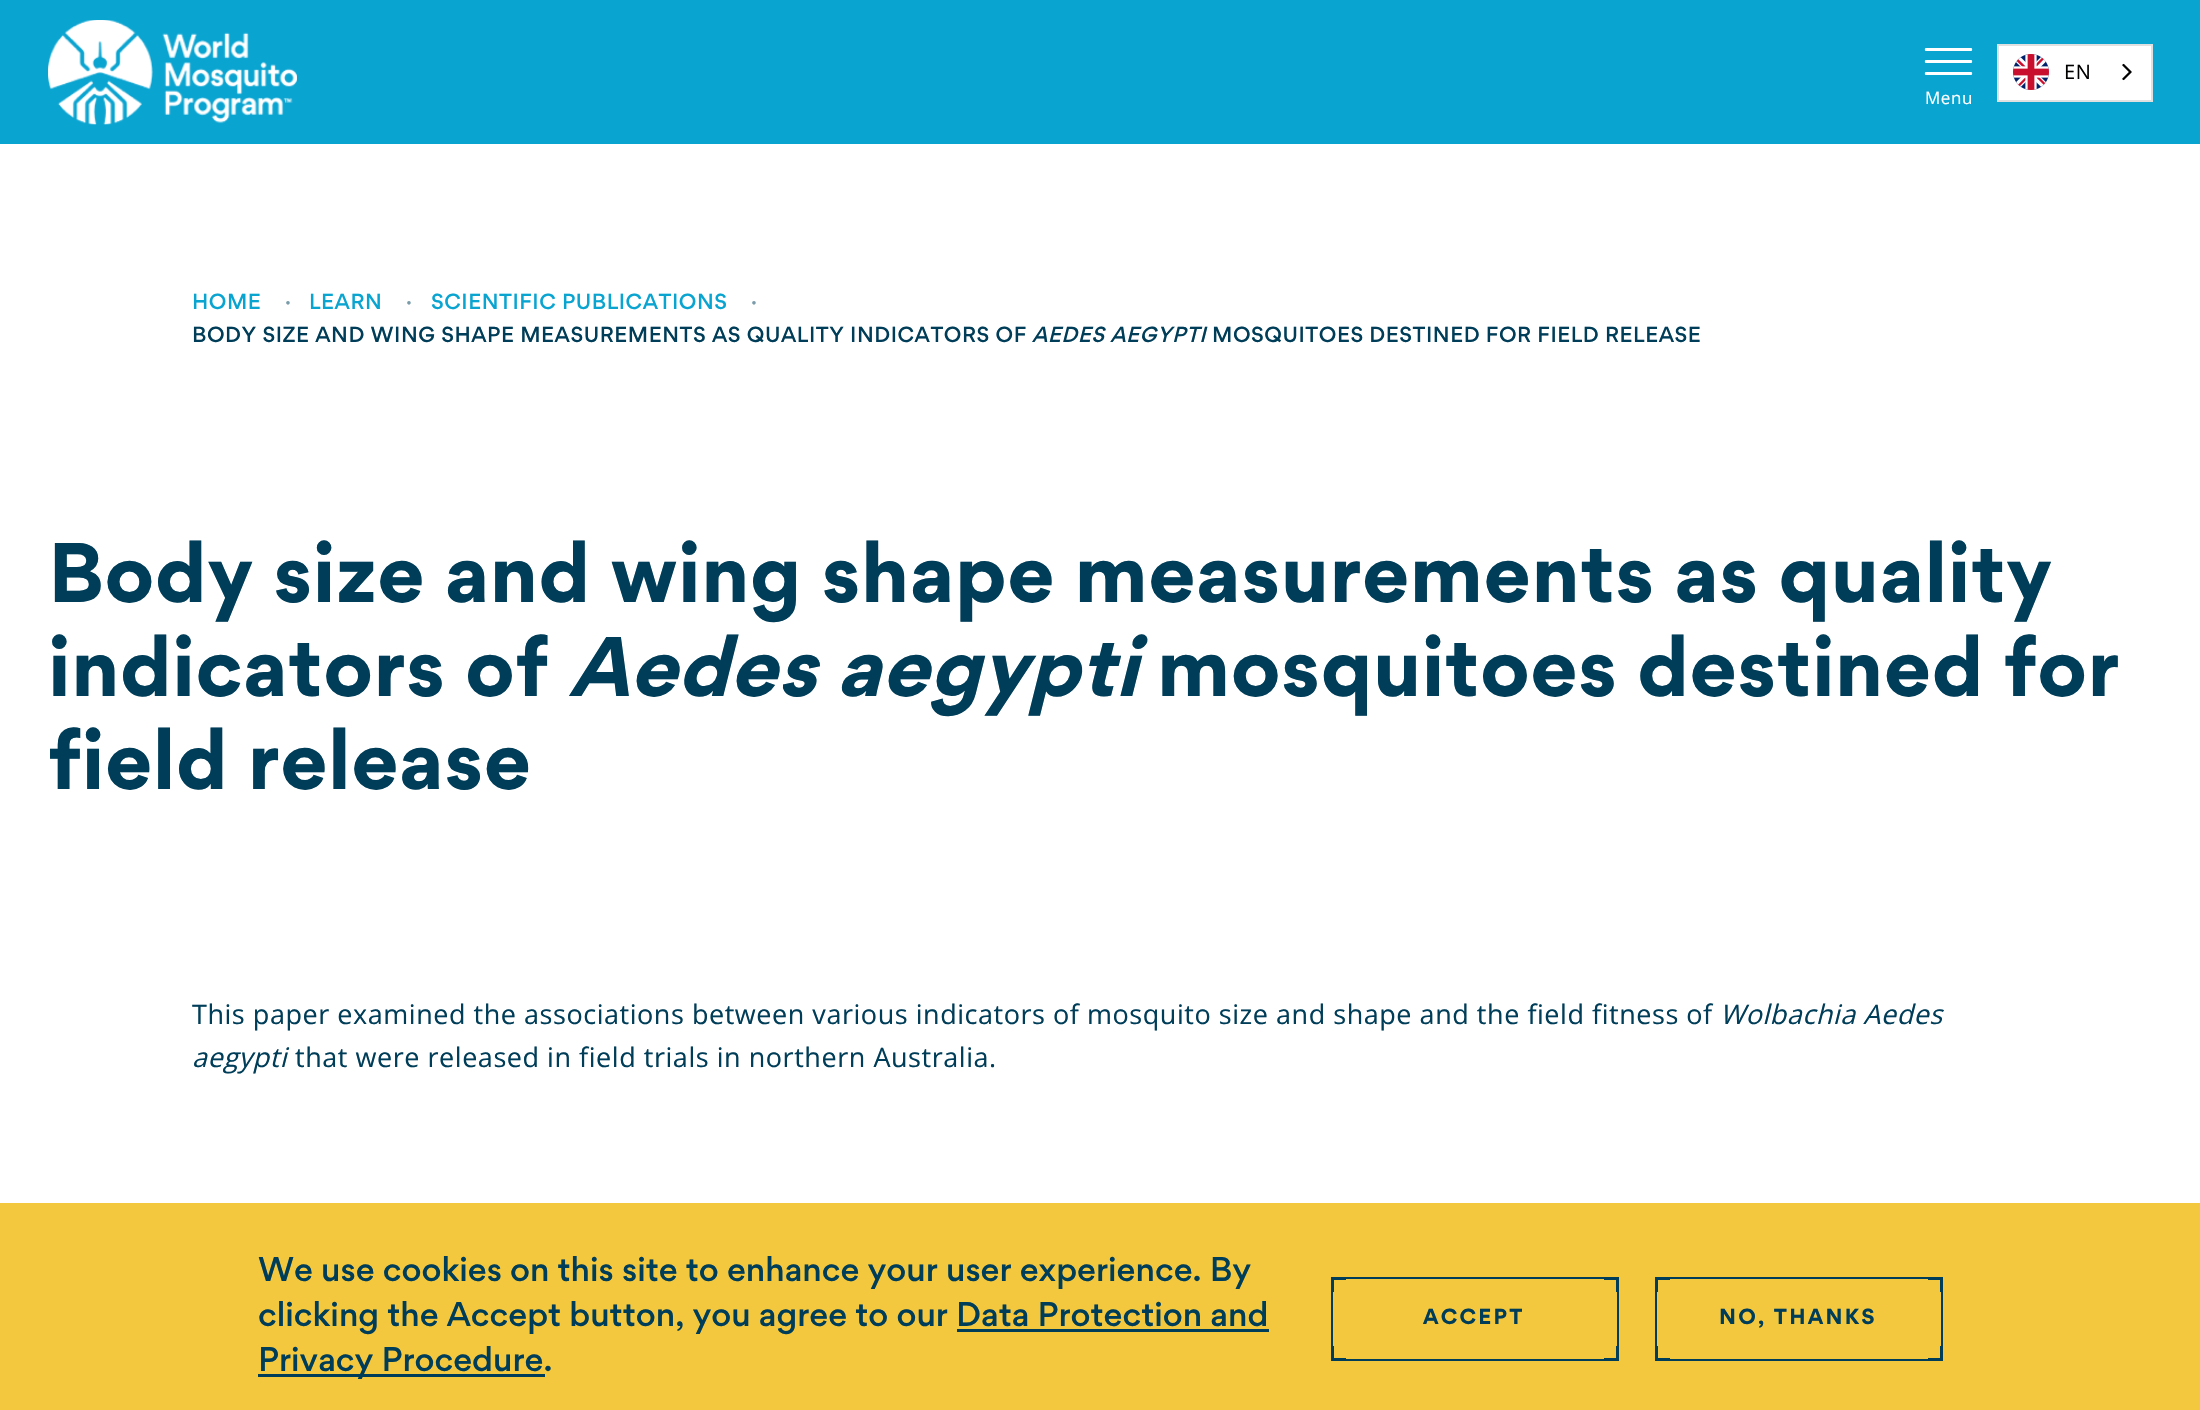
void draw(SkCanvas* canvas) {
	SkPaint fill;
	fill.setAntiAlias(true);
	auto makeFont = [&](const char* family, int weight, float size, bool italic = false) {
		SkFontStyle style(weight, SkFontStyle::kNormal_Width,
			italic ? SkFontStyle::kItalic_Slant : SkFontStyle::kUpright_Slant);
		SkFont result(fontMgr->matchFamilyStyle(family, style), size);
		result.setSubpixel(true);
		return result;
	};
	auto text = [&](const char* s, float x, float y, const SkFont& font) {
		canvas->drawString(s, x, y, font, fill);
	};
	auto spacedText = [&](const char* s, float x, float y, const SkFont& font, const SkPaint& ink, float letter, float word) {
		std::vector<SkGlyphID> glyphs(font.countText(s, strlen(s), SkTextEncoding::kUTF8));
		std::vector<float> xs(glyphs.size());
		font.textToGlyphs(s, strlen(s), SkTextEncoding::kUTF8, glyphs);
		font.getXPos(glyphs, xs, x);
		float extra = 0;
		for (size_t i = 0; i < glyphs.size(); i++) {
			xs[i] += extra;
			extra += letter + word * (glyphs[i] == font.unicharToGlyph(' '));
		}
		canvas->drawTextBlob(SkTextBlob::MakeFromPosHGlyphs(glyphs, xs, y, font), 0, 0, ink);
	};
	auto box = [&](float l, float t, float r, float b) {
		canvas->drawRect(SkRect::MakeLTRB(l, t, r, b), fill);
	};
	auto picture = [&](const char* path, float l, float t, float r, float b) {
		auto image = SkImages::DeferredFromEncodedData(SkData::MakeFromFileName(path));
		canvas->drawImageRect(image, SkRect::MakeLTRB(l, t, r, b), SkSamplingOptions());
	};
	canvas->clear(0xFFFFFFFF);
	fill.setColor(0xFF0AA4D1);
	box(0, 0, 2200, 144);
	picture("image0.png", 48, 20, 297, 125);
	fill.setColor(0xFFFFFFFF);
	canvas->drawRect(SkRect::MakeLTRB(1998, 45, 2152, 101), fill);
	fill.setStyle(SkPaint::kStroke_Style);
	fill.setStrokeWidth(2);
	fill.setColor(0xFFE0E0E0);
	canvas->drawRect(SkRect::MakeLTRB(1998, 45, 2152, 101), fill);
	picture("image1.png", 2013, 54, 2049, 90);
	picture("image2.png", 2122, 63, 2132, 81);
	picture("image3.png", 1924, 48, 1973, 75);
	fill.setStyle(SkPaint::kFill_Style);
	fill.setColor(0xFFF3C73E);
	box(0, 1203, 2200, 1410);
	fill.setColor(0xFF003D58);
	box(957, 1329, 1269, 1332);
	box(258, 1374, 545, 1377);
	fill.setStyle(SkPaint::kStroke_Style);
	canvas->drawRect(SkRect::MakeLTRB(1332, 1278, 1618, 1360), fill);
	fill.setStyle(SkPaint::kFill_Style);
	box(1331, 1279, 1346, 1280);
	box(1333, 1277, 1334, 1292);
	box(1604, 1279, 1619, 1280);
	box(1616, 1277, 1617, 1292);
	box(1331, 1358, 1346, 1359);
	box(1333, 1346, 1334, 1361);
	box(1616, 1346, 1617, 1361);
	box(1604, 1358, 1619, 1359);
	fill.setStyle(SkPaint::kStroke_Style);
	canvas->drawRect(SkRect::MakeLTRB(1656, 1278, 1942, 1360), fill);
	fill.setStyle(SkPaint::kFill_Style);
	box(1655, 1279, 1670, 1280);
	box(1657, 1277, 1658, 1292);
	box(1928, 1279, 1943, 1280);
	box(1940, 1277, 1941, 1292);
	box(1655, 1358, 1670, 1359);
	box(1657, 1346, 1658, 1361);
	box(1940, 1346, 1941, 1361);
	box(1928, 1358, 1943, 1359);
	auto font1 = makeFont("Open Sans", 400, 20);
	fill.setColor(0xFF000000);
	spacedText("EN", 2064, 79, font1, fill, 0.54f, 0);
	auto font2 = makeFont("Open Sans", 400, 17);
	fill.setColor(0xFFFFFFFF);
	spacedText("Menu", 1925, 104, font2, fill, 0.54f, 0);
	auto font3 = makeFont("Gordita", 500, 21);
	fill.setColor(0xFF0AA4D1);
	spacedText("HOME", 192, 309, font3, fill, 0.54f, 0);
	fill.setColor(0xFF7A9BAA);
	spacedText("·", 285, 309, font3, fill, 0.54f, 0);
	fill.setColor(0xFF0AA4D1);
	spacedText("LEARN", 309, 309, font3, fill, 0.54f, 0);
	fill.setColor(0xFF7A9BAA);
	spacedText("·", 406, 309, font3, fill, 0.54f, 0);
	fill.setColor(0xFF0AA4D1);
	spacedText("SCIENTIFIC PUBLICATIONS", 431, 309, font3, fill, 0.54f, 0);
	fill.setColor(0xFF7A9BAA);
	spacedText("·", 751, 309, font3, fill, 0.54f, 0);
	fill.setColor(0xFF003D58);
	spacedText("BODY SIZE AND WING SHAPE MEASUREMENTS AS QUALITY INDICATORS OF", 192, 342, font3, fill, 0.54f, 0);
	auto font4 = makeFont("Gordita", 500, 21, true);
	spacedText("AEDES AEGYPTI", 1032, 342, font4, fill, 0.54f, 0);
	spacedText("MOSQUITOES DESTINED FOR FIELD RELEASE", 1212, 342, font3, fill, 0.54f, 0);
	auto font5 = makeFont("Gordita", 700, 81);
	spacedText("Body size and wing shape measurements as quality", 48, 602, font5, fill, 0.54f, 0);
	spacedText("indicators of", 48, 696, font5, fill, 0.54f, 0);
	auto font6 = makeFont("Gordita", 700, 81, true);
	spacedText("Aedes aegypti", 569, 696, font6, fill, 0.54f, 0);
	spacedText("mosquitoes destined for", 1157, 696, font5, fill, 0.54f, 0);
	spacedText("field release", 48, 789, font5, fill, 0.54f, 0);
	auto font7 = makeFont("Open Sans", 400, 27);
	spacedText("This paper examined the associations between various indicators of mosquito size and shape and the field fitness of", 192, 1024, font7, fill, 0.54f, 0);
	auto font8 = makeFont("Open Sans", 400, 27, true);
	spacedText("Wolbachia Aedes", 1720, 1024, font8, fill, 0.54f, 0);
	spacedText("aegypti", 192, 1067, font8, fill, 0.54f, 0);
	spacedText("that were released in field trials in northern Australia.", 295, 1067, font7, fill, 0.54f, 0);
	auto font9 = makeFont("Gordita", 500, 33);
	text("We use cookies on this site to enhance your user experience. By", 258, 1281, font9);
	text("clicking the Accept button, you agree to our Data Protection and", 258, 1326, font9);
	text("Privacy Procedure.", 258, 1371, font9);
	auto font10 = makeFont("Gordita", 700, 21);
	spacedText("ACCEPT", 1423, 1324, font10, fill, 2.25f, 0);
	spacedText("NO, THANKS", 1719, 1324, font10, fill, 2.25f, 0);
}
